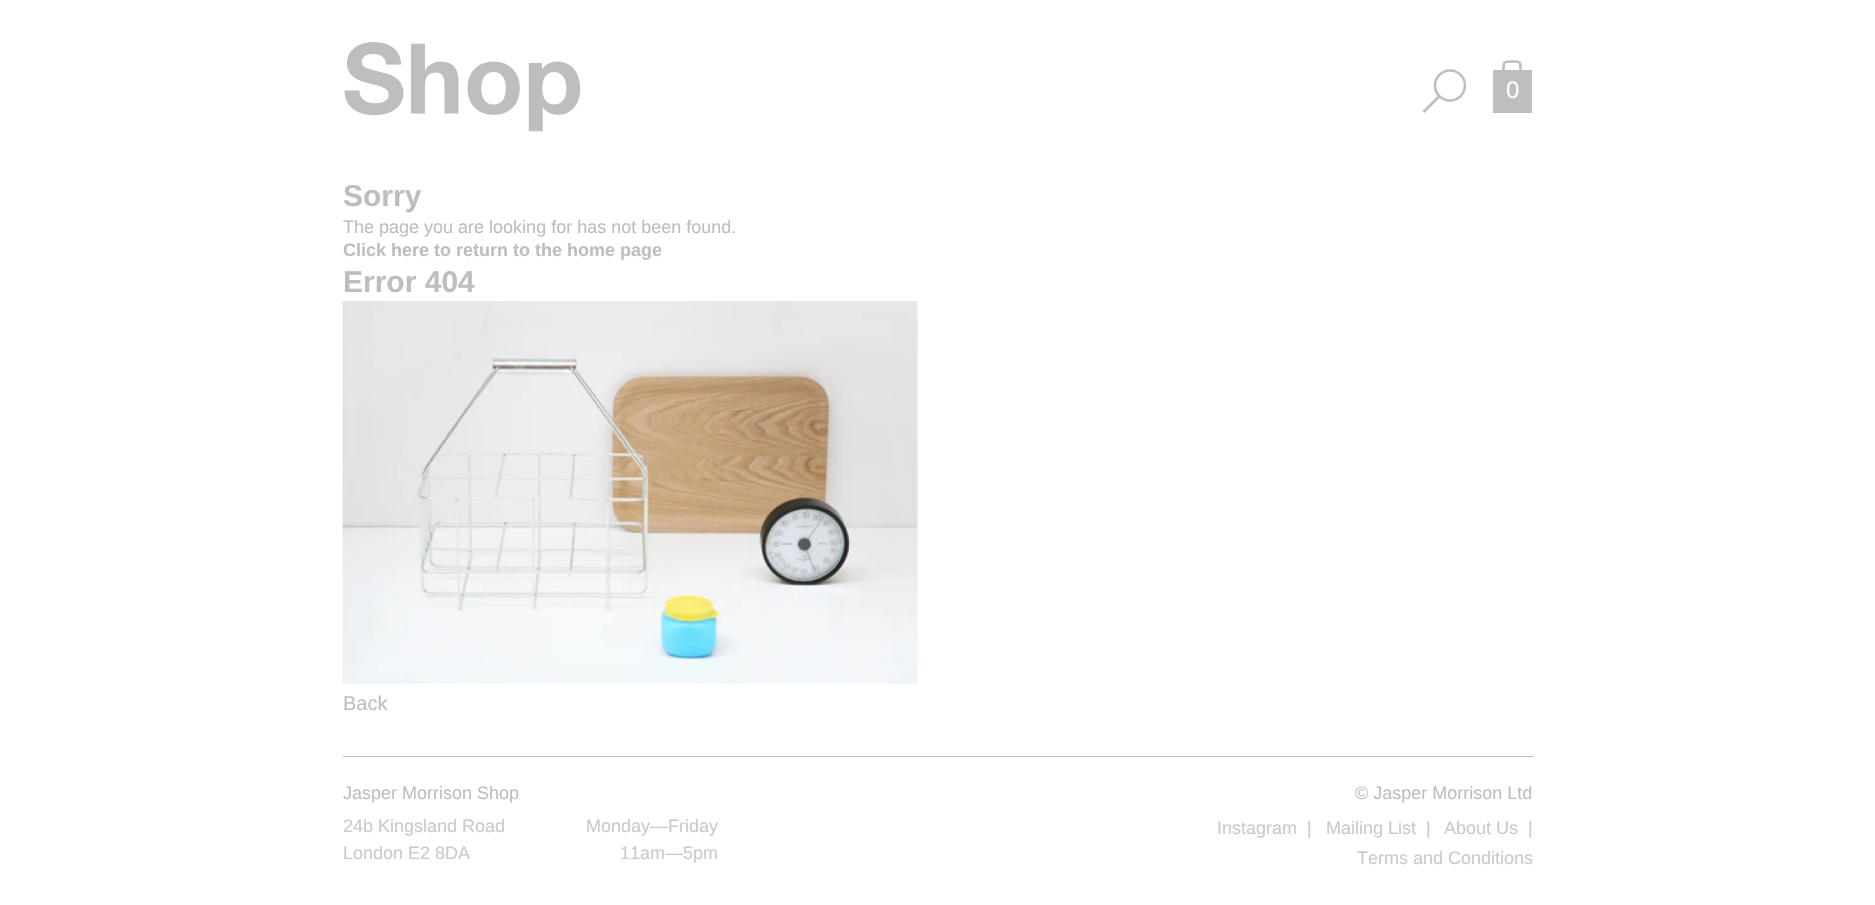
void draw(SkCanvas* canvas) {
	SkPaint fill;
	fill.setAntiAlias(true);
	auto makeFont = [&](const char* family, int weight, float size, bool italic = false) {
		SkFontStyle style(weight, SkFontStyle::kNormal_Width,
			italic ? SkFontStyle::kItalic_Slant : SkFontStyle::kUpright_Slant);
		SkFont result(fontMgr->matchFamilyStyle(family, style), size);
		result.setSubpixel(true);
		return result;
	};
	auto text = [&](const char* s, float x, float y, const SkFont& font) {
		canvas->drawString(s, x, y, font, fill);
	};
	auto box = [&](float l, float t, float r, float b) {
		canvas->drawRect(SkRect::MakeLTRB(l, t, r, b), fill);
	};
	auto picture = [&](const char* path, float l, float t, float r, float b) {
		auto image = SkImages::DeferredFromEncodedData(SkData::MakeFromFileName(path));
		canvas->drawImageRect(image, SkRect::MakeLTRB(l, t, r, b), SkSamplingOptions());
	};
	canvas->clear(0xFFFFFFFF);
	picture("image0.png", 344, 42, 581, 132);
	canvas->save();
	canvas->clipRect(SkRect::MakeLTRB(1423, 60, 1466, 113));
	fill.setStyle(SkPaint::kStroke_Style);
	fill.setStrokeWidth(2.6f);
	fill.setColor(0xFFBFBDBD);
	canvas->drawCircle(1450, 85.5f, 15, fill);
	canvas->restore();
	canvas->drawPath(SkPathBuilder().moveTo(1439.5f, 96).lineTo(1423.5f, 112).detach(), fill);
	fill.setStyle(SkPaint::kFill_Style);
	box(1493, 70, 1532, 113);
	fill.setStyle(SkPaint::kStroke_Style);
	fill.setStrokeJoin(SkPaint::kBevel_Join);
	canvas->drawPath(SkPathBuilder().moveTo(1520.5f, 70.5f).cubicTo(1520.5f, 62, 1521.5f, 61.5f, 1512, 61.5f).cubicTo(1503, 61.5f, 1503.5f, 62, 1503.5f, 70.5f).detach(), fill);
	picture("image1.png", 342, 301, 918, 684);
	fill.setStyle(SkPaint::kFill_Style);
	box(343, 756, 1533, 757);
	auto font1 = makeFont("Liberation Sans", 400, 24);
	fill.setColor(0xFFFFFFFF);
	text("0", 1506, 98, font1);
	auto font2 = makeFont("Liberation Sans", 700, 30);
	fill.setColor(0xFFBFBDBD);
	text("Sorry", 343, 206, font2);
	auto font3 = makeFont("Liberation Sans", 400, 18);
	text("The page you are looking for has not been found.", 343, 233, font3);
	auto font4 = makeFont("Liberation Sans", 700, 18);
	text("Click here to return to the home page", 343, 256, font4);
	text("Error 404", 343, 292, font2);
	auto font5 = makeFont("Liberation Sans", 400, 20);
	text("Back", 343, 710, font5);
	text("Jasper Morrison Shop", 343, 799, font3);
	fill.setColor(0xFFCACACA);
	text("24b Kingsland Road", 343, 832, font3);
	text("London E2 8DA", 343, 859, font3);
	text("Monday—Friday", 586, 832, font3);
	text("11am—5pm", 620, 859, font3);
	fill.setColor(0xFFBFBDBD);
	text("© Jasper Morrison Ltd", 1355, 799, font3);
	fill.setColor(0xFFCACACA);
	text("Instagram", 1217, 834, font3);
	text("|", 1307, 834, font3);
	text("Mailing List", 1326, 834, font3);
	text("|", 1426, 834, font3);
	text("About Us", 1444, 834, font3);
	text("|", 1528, 834, font3);
	text("Terms and Conditions", 1357, 864, font3);
}
